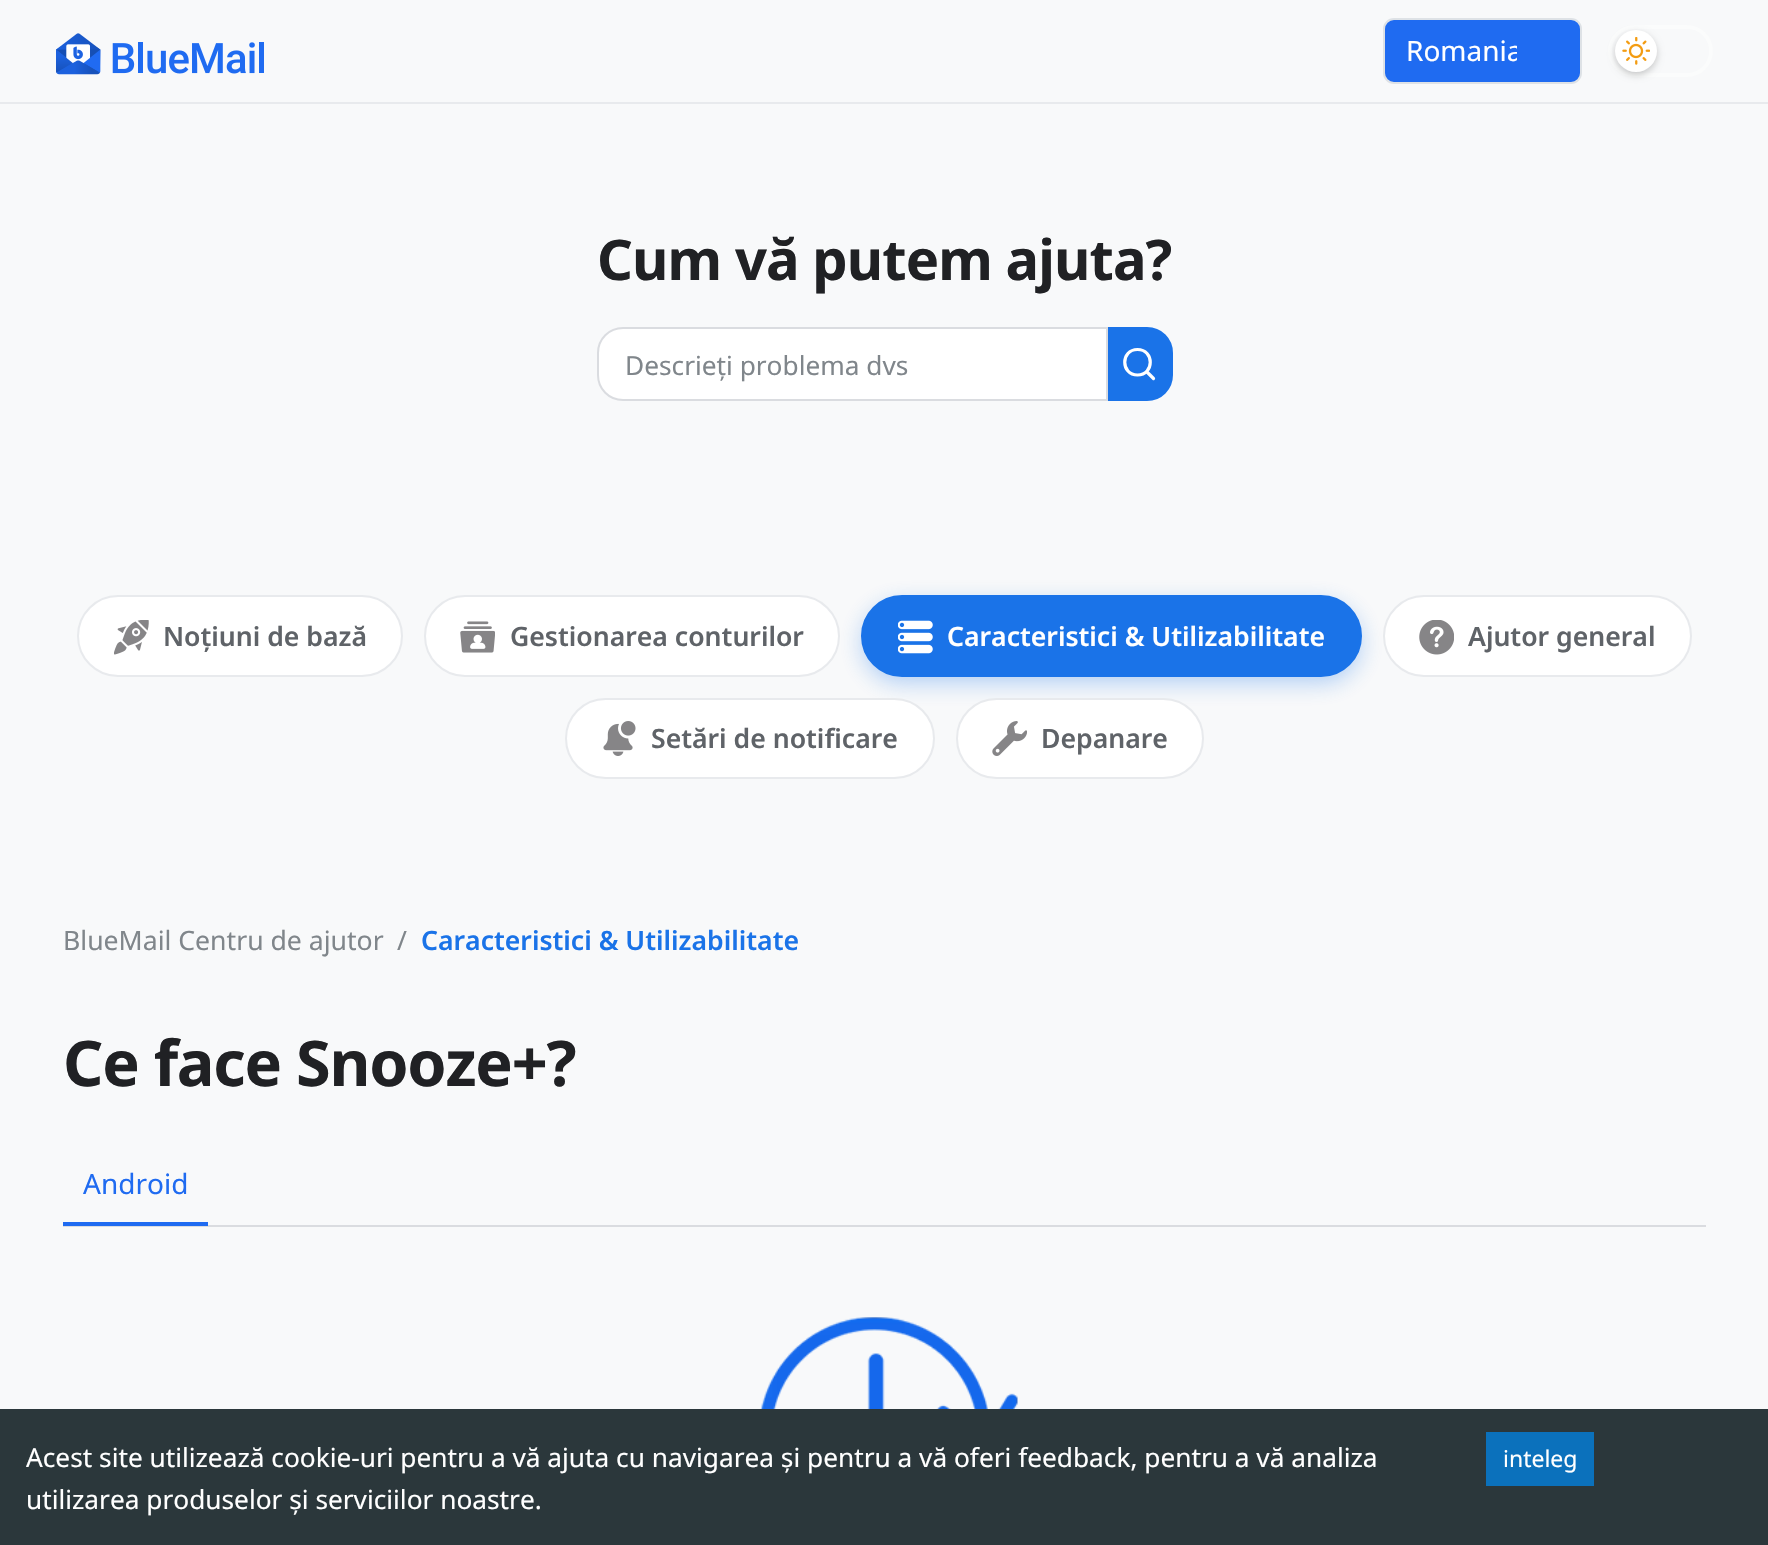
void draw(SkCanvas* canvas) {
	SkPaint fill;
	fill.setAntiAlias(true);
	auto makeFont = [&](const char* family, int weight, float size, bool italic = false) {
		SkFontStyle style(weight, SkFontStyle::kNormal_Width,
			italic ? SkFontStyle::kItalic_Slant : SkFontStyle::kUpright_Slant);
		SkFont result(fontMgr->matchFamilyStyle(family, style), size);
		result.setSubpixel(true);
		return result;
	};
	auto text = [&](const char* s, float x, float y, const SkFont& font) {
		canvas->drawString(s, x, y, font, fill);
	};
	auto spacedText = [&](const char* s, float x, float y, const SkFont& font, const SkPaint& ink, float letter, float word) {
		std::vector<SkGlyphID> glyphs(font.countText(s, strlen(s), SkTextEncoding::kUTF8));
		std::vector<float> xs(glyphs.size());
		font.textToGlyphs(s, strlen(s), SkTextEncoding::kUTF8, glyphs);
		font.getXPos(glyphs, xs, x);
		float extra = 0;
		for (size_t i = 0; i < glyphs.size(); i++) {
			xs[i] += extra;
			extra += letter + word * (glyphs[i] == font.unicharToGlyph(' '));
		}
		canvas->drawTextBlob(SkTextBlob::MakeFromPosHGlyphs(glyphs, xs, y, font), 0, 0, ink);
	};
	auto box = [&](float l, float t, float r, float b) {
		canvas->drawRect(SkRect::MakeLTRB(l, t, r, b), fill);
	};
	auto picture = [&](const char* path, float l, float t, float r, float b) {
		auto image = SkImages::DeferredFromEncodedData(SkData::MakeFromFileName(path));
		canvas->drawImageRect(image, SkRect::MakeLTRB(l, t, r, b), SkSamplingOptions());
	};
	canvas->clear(0xFFF8F9FA);
	fill.setColor(0xFFE8EAED);
	box(0, 102, 1768, 104);
	picture("image0.png", 56, 33, 264, 75);
	fill.setColor(0xFF1F6BF1);
	canvas->drawRoundRect(SkRect::MakeLTRB(1384, 19, 1581, 83), 10, 10, fill);
	fill.setStyle(SkPaint::kStroke_Style);
	fill.setStrokeWidth(2);
	fill.setColor(0xFFDEE2E6);
	canvas->drawRoundRect(SkRect::MakeLTRB(1384, 19, 1581, 83), 10, 10, fill);
	fill.setStrokeWidth(4);
	fill.setColor(0xFFFBFCFC);
	canvas->drawRoundRect(SkRect::MakeLTRB(1610, 27, 1711, 75), 24, 24, fill);
	fill.setStyle(SkPaint::kFill_Style);
	fill.setColor(0x33000000);
	fill.setMaskFilter(SkMaskFilter::MakeBlur(kNormal_SkBlurStyle, 3.5f));
	canvas->drawRoundRect(SkRect::MakeLTRB(1615, 33, 1657, 75), 21, 21, fill);
	fill.setMaskFilter(nullptr);
	fill.setColor(0xFFFFFFFF);
	canvas->drawCircle(1636, 51, 21, fill);
	picture("image1.png", 1622, 37, 1650, 65);
	canvas->drawPath(SkPathBuilder().moveTo(623, 328).lineTo(1107, 328).lineTo(1107, 400).lineTo(623, 400).cubicTo(609, 400, 598, 389, 598, 375).lineTo(598, 353).cubicTo(598, 339, 609, 328, 623, 328).close().detach(), fill);
	fill.setStyle(SkPaint::kStroke_Style);
	fill.setStrokeWidth(2);
	fill.setColor(0xFFDADCE0);
	canvas->drawPath(SkPathBuilder().moveTo(623, 328).lineTo(1107, 328).lineTo(1107, 400).lineTo(623, 400).cubicTo(609, 400, 598, 389, 598, 375).lineTo(598, 353).cubicTo(598, 339, 609, 328, 623, 328).close().detach(), fill);
	fill.setStyle(SkPaint::kFill_Style);
	fill.setColor(0xFF1A73E8);
	canvas->drawPath(SkPathBuilder().moveTo(1109, 328).lineTo(1147, 328).cubicTo(1161, 328, 1172, 339, 1172, 353).lineTo(1172, 375).cubicTo(1172, 389, 1161, 400, 1147, 400).lineTo(1109, 400).close().detach(), fill);
	fill.setStyle(SkPaint::kStroke_Style);
	canvas->drawPath(SkPathBuilder().moveTo(1109, 328).lineTo(1147, 328).cubicTo(1161, 328, 1172, 339, 1172, 353).lineTo(1172, 375).cubicTo(1172, 389, 1161, 400, 1147, 400).lineTo(1109, 400).close().detach(), fill);
	fill.setStrokeWidth(3.2f);
	fill.setStrokeCap(SkPaint::kRound_Cap);
	fill.setStrokeJoin(SkPaint::kRound_Join);
	fill.setColor(0xFFFFFFFF);
	canvas->drawPath(SkPathBuilder().moveTo(1137.5f, 375).cubicTo(1154.5f, 375, 1154.5f, 349.5f, 1137.5f, 349.5f).cubicTo(1120.5f, 349.5f, 1120.5f, 375, 1137.5f, 375).close().moveTo(1153.5f, 378.5f).lineTo(1146.5f, 371.5f).detach(), fill);
	fill.setStyle(SkPaint::kFill_Style);
	fill.setColor(0xFF2B373B);
	box(0, 1409, 1768, 1545);
	fill.setColor(0xFF0B71BC);
	box(1486, 1432, 1594, 1486);
	fill.setColor(0xFFFFFFFF);
	canvas->drawRoundRect(SkRect::MakeLTRB(78, 596, 402, 676), 40, 40, fill);
	fill.setStyle(SkPaint::kStroke_Style);
	fill.setStrokeWidth(2);
	fill.setStrokeCap(SkPaint::kButt_Cap);
	fill.setStrokeJoin(SkPaint::kMiter_Join);
	fill.setColor(0xFFE8EAED);
	canvas->drawRoundRect(SkRect::MakeLTRB(78, 596, 402, 676), 40, 40, fill);
	picture("image2.png", 114, 620, 149, 655);
	fill.setStyle(SkPaint::kFill_Style);
	fill.setColor(0xFFFFFFFF);
	canvas->drawRoundRect(SkRect::MakeLTRB(425, 596, 839, 676), 40, 40, fill);
	fill.setStyle(SkPaint::kStroke_Style);
	fill.setColor(0xFFE8EAED);
	canvas->drawRoundRect(SkRect::MakeLTRB(425, 596, 839, 676), 40, 40, fill);
	picture("image3.png", 460, 621, 495, 653);
	fill.setStyle(SkPaint::kFill_Style);
	fill.setColor(0x4D1A73E8);
	fill.setMaskFilter(SkMaskFilter::MakeBlur(kNormal_SkBlurStyle, 10.5f));
	canvas->drawRoundRect(SkRect::MakeLTRB(861, 602, 1362, 684), 41, 41, fill);
	fill.setMaskFilter(nullptr);
	fill.setColor(0xFF1A73E8);
	canvas->drawRoundRect(SkRect::MakeLTRB(862, 596, 1361, 676), 40, 40, fill);
	fill.setStyle(SkPaint::kStroke_Style);
	canvas->drawRoundRect(SkRect::MakeLTRB(862, 596, 1361, 676), 40, 40, fill);
	picture("image4.png", 898, 620, 933, 654);
	fill.setStyle(SkPaint::kFill_Style);
	fill.setColor(0xFFFFFFFF);
	canvas->drawRoundRect(SkRect::MakeLTRB(1384, 596, 1691, 676), 40, 40, fill);
	fill.setStyle(SkPaint::kStroke_Style);
	fill.setColor(0xFFE8EAED);
	canvas->drawRoundRect(SkRect::MakeLTRB(1384, 596, 1691, 676), 40, 40, fill);
	picture("image5.png", 1419, 620, 1454, 655);
	fill.setStyle(SkPaint::kFill_Style);
	fill.setColor(0xFFFFFFFF);
	canvas->drawRoundRect(SkRect::MakeLTRB(566, 699, 934, 778), 39.5f, 39.5f, fill);
	fill.setStyle(SkPaint::kStroke_Style);
	fill.setColor(0xFFE8EAED);
	canvas->drawRoundRect(SkRect::MakeLTRB(566, 699, 934, 778), 39.5f, 39.5f, fill);
	picture("image6.png", 603, 721, 636, 756);
	fill.setStyle(SkPaint::kFill_Style);
	fill.setColor(0xFFFFFFFF);
	canvas->drawRoundRect(SkRect::MakeLTRB(957, 699, 1203, 778), 39.5f, 39.5f, fill);
	fill.setStyle(SkPaint::kStroke_Style);
	fill.setColor(0xFFE8EAED);
	canvas->drawRoundRect(SkRect::MakeLTRB(957, 699, 1203, 778), 39.5f, 39.5f, fill);
	picture("image7.png", 992, 721, 1027, 756);
	fill.setStyle(SkPaint::kFill_Style);
	fill.setColor(0xFFDADCE0);
	box(63, 1225, 1706, 1227);
	fill.setColor(0xFF1F6BF1);
	box(63, 1222, 208, 1226);
	picture("image8.png", 760, 1317, 1018, 1409);
	canvas->save();
	canvas->clipRect(SkRect::MakeLTRB(1405, 30, 1517, 72));
	auto font1 = makeFont("Noto Sans", 400, 28);
	fill.setColor(0xFFFFFFFF);
	text("Romania", 1406, 61, font1);
	canvas->restore();
	auto font2 = makeFont("Noto Sans", 700, 56);
	fill.setColor(0xFF202124);
	spacedText("Cum vă putem ajuta?", 597, 280, font2, fill, -0.9f, 0);
	auto font3 = makeFont("Noto Sans", 400, 26.25f);
	fill.setColor(0xFF80868B);
	text("Descrieți problema dvs", 625, 375, font3);
	fill.setColor(0xFFFFFFFF);
	text("Acest site utilizează cookie-uri pentru a vă ajuta cu navigarea și pentru a vă oferi feedback, pentru a vă analiza", 26, 1467, font3);
	text("utilizarea produselor și serviciilor noastre.", 26, 1509, font3);
	auto font4 = makeFont("Noto Sans", 400, 23);
	text("inteleg", 1503, 1467, font4);
	auto font5 = makeFont("Noto Sans", 600, 26.6f);
	fill.setColor(0xFF5F6368);
	text("Noțiuni de bază", 163, 646, font5);
	text("Gestionarea conturilor", 510, 646, font5);
	fill.setColor(0xFFFFFFFF);
	text("Caracteristici & Utilizabilitate", 947, 646, font5);
	fill.setColor(0xFF5F6368);
	text("Ajutor general", 1468, 646, font5);
	text("Setări de notificare", 651, 748, font5);
	text("Depanare", 1041, 748, font5);
	auto font6 = makeFont("Noto Sans", 400, 26.6f);
	fill.setColor(0xFF80868B);
	text("BlueMail Centru de ajutor", 63, 950, font6);
	text("/", 397, 950, font6);
	fill.setColor(0xFF1A73E8);
	text("Caracteristici & Utilizabilitate", 421, 950, font5);
	auto font7 = makeFont("Noto Sans", 700, 63);
	fill.setColor(0xFF202124);
	spacedText("Ce face Snooze+?", 63, 1086, font7, fill, -1.25f, 0);
	fill.setColor(0xFF1F6BF1);
	text("Android", 83, 1194, font1);
}
